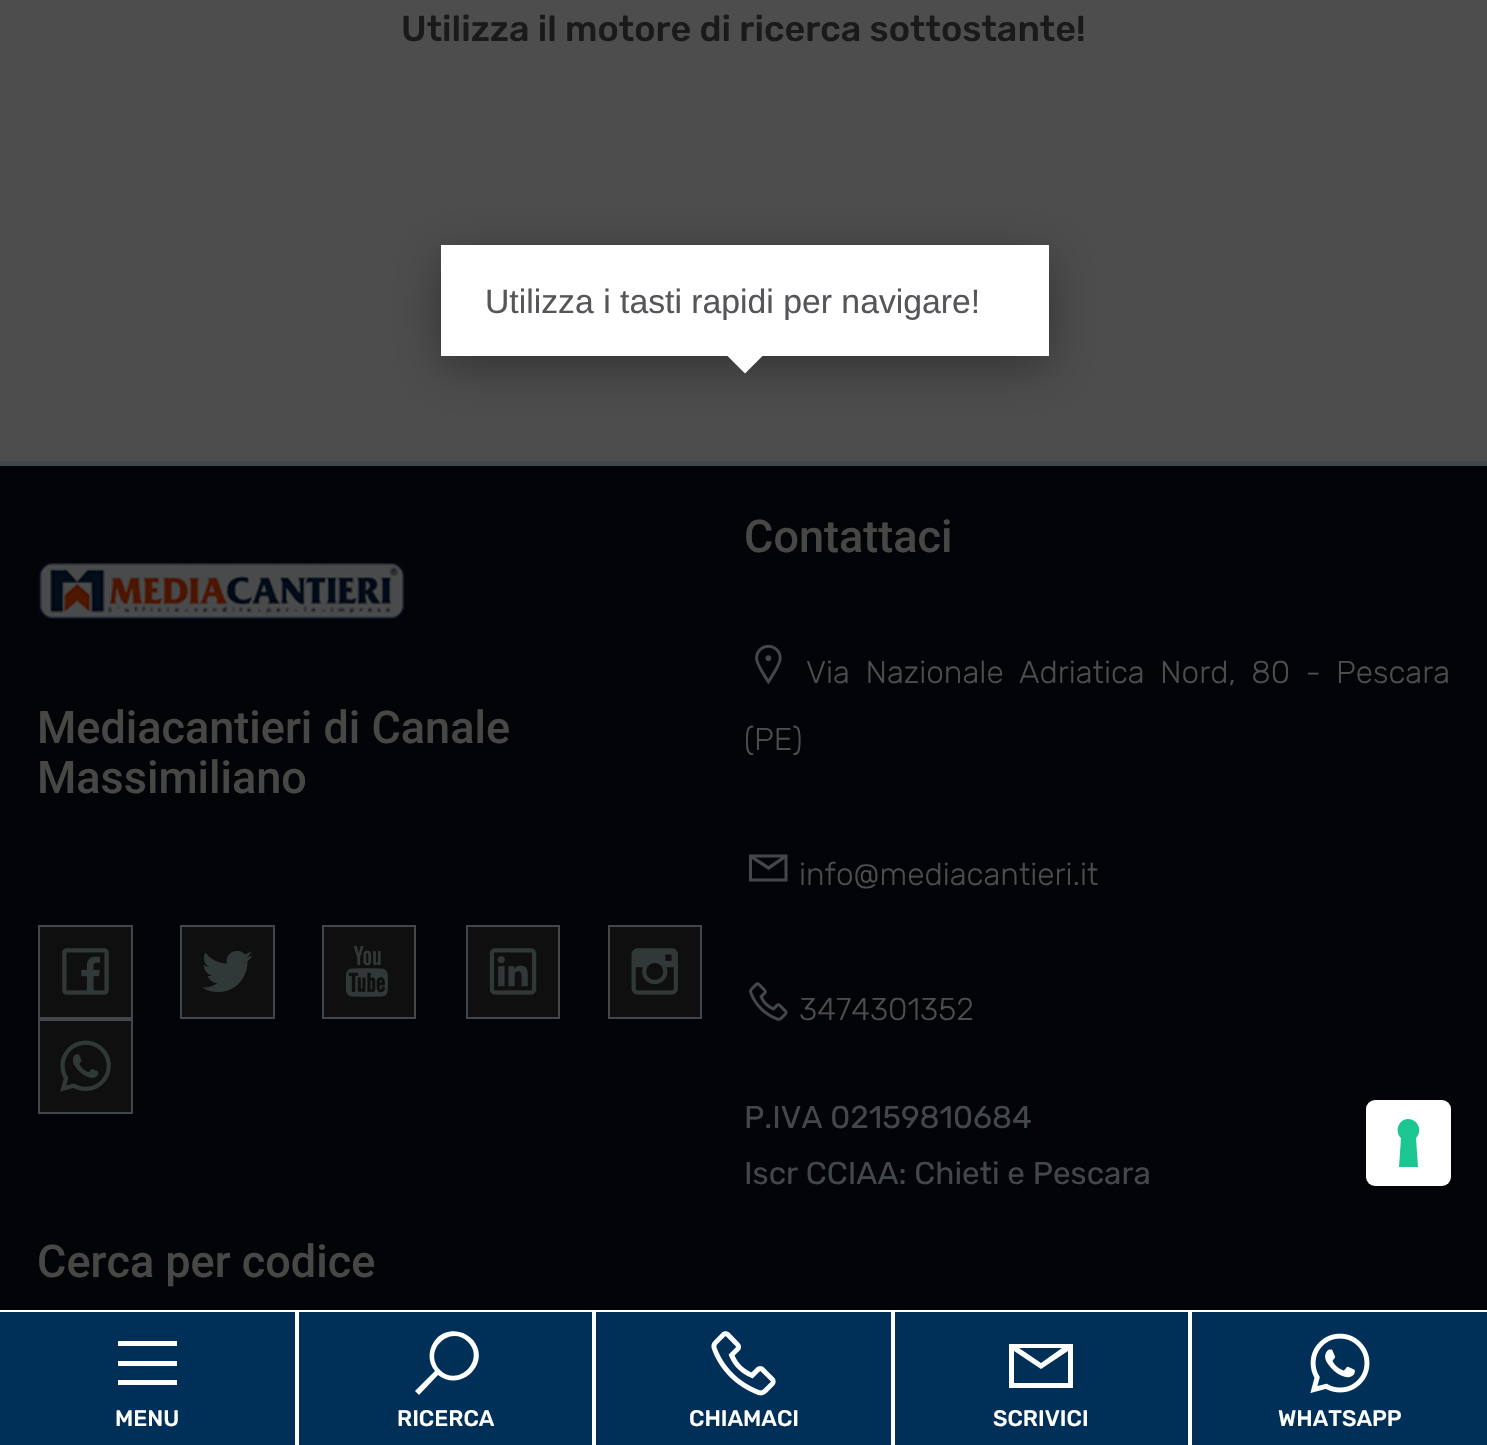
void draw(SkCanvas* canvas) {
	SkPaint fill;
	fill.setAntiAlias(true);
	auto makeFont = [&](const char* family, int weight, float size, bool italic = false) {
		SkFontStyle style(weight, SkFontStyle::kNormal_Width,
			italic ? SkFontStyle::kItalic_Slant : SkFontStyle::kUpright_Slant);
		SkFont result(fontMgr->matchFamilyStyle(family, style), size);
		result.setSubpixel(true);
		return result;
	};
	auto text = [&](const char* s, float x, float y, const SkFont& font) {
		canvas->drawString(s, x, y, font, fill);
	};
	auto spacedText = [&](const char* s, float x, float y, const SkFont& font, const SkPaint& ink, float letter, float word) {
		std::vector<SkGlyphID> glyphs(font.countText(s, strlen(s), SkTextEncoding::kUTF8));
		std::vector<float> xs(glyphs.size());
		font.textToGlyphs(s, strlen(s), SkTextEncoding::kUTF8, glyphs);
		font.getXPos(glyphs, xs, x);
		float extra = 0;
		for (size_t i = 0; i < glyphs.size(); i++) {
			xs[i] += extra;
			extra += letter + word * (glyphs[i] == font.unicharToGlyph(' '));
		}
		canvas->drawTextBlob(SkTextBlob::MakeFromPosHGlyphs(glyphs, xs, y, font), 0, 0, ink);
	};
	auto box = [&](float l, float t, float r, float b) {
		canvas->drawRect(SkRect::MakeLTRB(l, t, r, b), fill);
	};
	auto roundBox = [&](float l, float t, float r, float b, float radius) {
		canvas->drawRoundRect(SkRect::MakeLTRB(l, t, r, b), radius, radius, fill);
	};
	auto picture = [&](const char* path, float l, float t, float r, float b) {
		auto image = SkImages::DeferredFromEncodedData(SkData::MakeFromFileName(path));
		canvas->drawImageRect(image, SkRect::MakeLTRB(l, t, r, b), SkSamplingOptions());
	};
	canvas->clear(0xFF4D4D4D);
	fill.setColor(0x59000000);
	fill.setMaskFilter(SkMaskFilter::MakeBlur(kNormal_SkBlurStyle, 22.5f));
	canvas->drawRect(SkRect::MakeLTRB(441, 257, 1049, 367), fill);
	fill.setMaskFilter(nullptr);
	fill.setColor(0xFFFFFFFF);
	box(441, 245, 1049, 356);
	canvas->drawPath(SkPathBuilder().moveTo(727, 355.5f).lineTo(763, 355.5f).lineTo(745, 373.5f).close().detach(), fill);
	fill.setColor(0xFF030408);
	box(0, 466, 1487, 1310);
	fill.setColor(0xFF41474A);
	box(0, 461, 1487, 466);
	picture("image0.png", 38, 561, 405, 620);
	fill.setColor(0xFF0F0F0F);
	canvas->drawRect(SkRect::MakeLTRB(39, 926, 132, 1018), fill);
	fill.setStyle(SkPaint::kStroke_Style);
	fill.setStrokeWidth(2);
	fill.setColor(0xFF41474A);
	canvas->drawRect(SkRect::MakeLTRB(39, 926, 132, 1018), fill);
	picture("image1.png", 62, 948, 109, 995);
	fill.setStyle(SkPaint::kFill_Style);
	fill.setColor(0xFF0F0F0F);
	canvas->drawRect(SkRect::MakeLTRB(181, 926, 274, 1018), fill);
	fill.setStyle(SkPaint::kStroke_Style);
	fill.setColor(0xFF41474A);
	canvas->drawRect(SkRect::MakeLTRB(181, 926, 274, 1018), fill);
	picture("image2.png", 202, 950, 253, 992);
	fill.setStyle(SkPaint::kFill_Style);
	fill.setColor(0xFF0F0F0F);
	canvas->drawRect(SkRect::MakeLTRB(323, 926, 415, 1018), fill);
	fill.setStyle(SkPaint::kStroke_Style);
	fill.setColor(0xFF41474A);
	canvas->drawRect(SkRect::MakeLTRB(323, 926, 415, 1018), fill);
	picture("image3.png", 345, 946, 388, 997);
	fill.setStyle(SkPaint::kFill_Style);
	fill.setColor(0xFF0F0F0F);
	canvas->drawRect(SkRect::MakeLTRB(467, 926, 559, 1018), fill);
	fill.setStyle(SkPaint::kStroke_Style);
	fill.setColor(0xFF41474A);
	canvas->drawRect(SkRect::MakeLTRB(467, 926, 559, 1018), fill);
	picture("image4.png", 489, 948, 537, 995);
	fill.setStyle(SkPaint::kFill_Style);
	fill.setColor(0xFF0F0F0F);
	canvas->drawRect(SkRect::MakeLTRB(609, 926, 701, 1018), fill);
	fill.setStyle(SkPaint::kStroke_Style);
	fill.setColor(0xFF41474A);
	canvas->drawRect(SkRect::MakeLTRB(609, 926, 701, 1018), fill);
	picture("image5.png", 631, 948, 678, 995);
	fill.setStyle(SkPaint::kFill_Style);
	fill.setColor(0xFF0F0F0F);
	canvas->drawRect(SkRect::MakeLTRB(39, 1020, 132, 1113), fill);
	fill.setStyle(SkPaint::kStroke_Style);
	fill.setColor(0xFF41474A);
	canvas->drawRect(SkRect::MakeLTRB(39, 1020, 132, 1113), fill);
	picture("image6.png", 60, 1040, 111, 1092);
	picture("image7.png", 755, 644, 782, 685);
	fill.setStyle(SkPaint::kFill_Style);
	canvas->drawPath(SkPathBuilder().moveTo(749, 854.5f).lineTo(787.5f, 854.5f).lineTo(787.5f, 881.5f).lineTo(749, 881.5f).close().moveTo(755.5f, 857.5f).lineTo(768.5f, 866).lineTo(781, 857.5f).close().moveTo(752, 859).lineTo(752, 878.5f).lineTo(784.5f, 878.5f).lineTo(784.5f, 859).lineTo(768.5f, 870).close().detach(), fill);
	picture("image8.png", 749, 982, 788, 1021);
	fill.setColor(0xFFFFFFFF);
	roundBox(1366, 1100, 1451, 1186, 9);
	fill.setColor(0xFF1CC691);
	canvas->drawPath(SkPathBuilder(SkPathFillType::kEvenOdd).moveTo(1408, 1119).cubicTo(1418, 1119, 1423, 1131, 1416, 1138).lineTo(1418, 1167).lineTo(1399, 1167).lineTo(1401, 1138).cubicTo(1394, 1131, 1399, 1119, 1408, 1119).close().detach(), fill);
	fill.setColor(0xFF003057);
	box(0, 1312, 295, 1445);
	fill.setColor(0xFFFFFFFF);
	box(0, 1310, 1487, 1312);
	box(295, 1310, 299, 1445);
	canvas->drawPath(SkPathBuilder().moveTo(118, 1341).lineTo(177, 1341).lineTo(177, 1346).lineTo(118, 1346).close().moveTo(118, 1361).lineTo(177, 1361).lineTo(177, 1366).lineTo(118, 1366).close().moveTo(118, 1380).lineTo(177, 1380).lineTo(177, 1385).lineTo(118, 1385).close().detach(), fill);
	fill.setColor(0xFF003057);
	box(299, 1312, 592, 1445);
	fill.setColor(0xFFFFFFFF);
	box(592, 1310, 596, 1445);
	canvas->drawPath(SkPathBuilder().moveTo(437, 1338).cubicTo(442, 1333, 451, 1330, 459, 1332).cubicTo(465, 1333, 469, 1336, 473, 1340).cubicTo(492, 1363, 461, 1393, 438, 1375).lineTo(419, 1395).lineTo(415, 1391).lineTo(435, 1371).cubicTo(427, 1362, 428, 1347, 437, 1338).close().moveTo(468, 1342).cubicTo(450, 1324, 422, 1351, 440, 1370).cubicTo(458, 1388, 486, 1360, 468, 1342).close().detach(), fill);
	fill.setColor(0xFF003057);
	box(596, 1312, 891, 1445);
	fill.setColor(0xFFFFFFFF);
	box(891, 1310, 895, 1445);
	picture("image9.png", 711, 1331, 776, 1396);
	fill.setColor(0xFF003057);
	box(895, 1312, 1188, 1445);
	fill.setColor(0xFFFFFFFF);
	box(1188, 1310, 1192, 1445);
	canvas->drawPath(SkPathBuilder().moveTo(1009, 1344).lineTo(1073, 1344).lineTo(1073, 1388).lineTo(1009, 1388).close().moveTo(1019, 1348).lineTo(1041, 1363).lineTo(1062, 1348).close().moveTo(1014, 1351).lineTo(1014, 1383).lineTo(1068, 1383).lineTo(1068, 1351).lineTo(1041, 1369).close().detach(), fill);
	fill.setColor(0xFF003057);
	box(1192, 1312, 1487, 1445);
	picture("image10.png", 1310, 1333, 1370, 1393);
	auto font1 = makeFont("Rubik", 500, 36);
	fill.setColor(0xFF1A1A1A);
	text("Utilizza il motore di ricerca sottostante!", 401, 41, font1);
	auto font2 = makeFont("Liberation Sans", 400, 33.75f);
	fill.setColor(0xFF56565A);
	text("Utilizza i tasti rapidi per navigare!", 485, 313, font2);
	auto font3 = makeFont("Roboto", 500, 45);
	fill.setColor(0xFF474745);
	text("Mediacantieri di Canale", 37, 743, font3);
	text("Massimiliano", 37, 793, font3);
	text("Contattaci", 744, 552, font3);
	auto font4 = makeFont("Rubik", 300, 31.5f);
	fill.setColor(0xFF4D4D4D);
	spacedText("Via Nazionale Adriatica Nord, 80 -", 806, 683, font4, fill, 0, 7.25f);
	text("Pescara", 1336, 683, font4);
	text("(PE)", 744, 750, font4);
	text("info@mediacantieri.it", 799, 885, font4);
	text("3474301352", 799, 1020, font4);
	auto font5 = makeFont("Rubik", 400, 31.5f);
	fill.setColor(0xFF41474A);
	text("P.IVA 02159810684", 744, 1128, font5);
	text("Iscr CCIAA: Chieti e Pescara", 744, 1184, font5);
	fill.setColor(0xFF474745);
	text("Cerca per codice", 37, 1277, font3);
	auto font6 = makeFont("Rubik", 500, 22.5f);
	fill.setColor(0xFFFFFFFF);
	text("MENU", 115, 1426, font6);
	text("RICERCA", 397, 1426, font6);
	text("CHIAMACI", 689, 1426, font6);
	text("SCRIVICI", 993, 1426, font6);
	text("WHATSAPP", 1278, 1426, font6);
}
